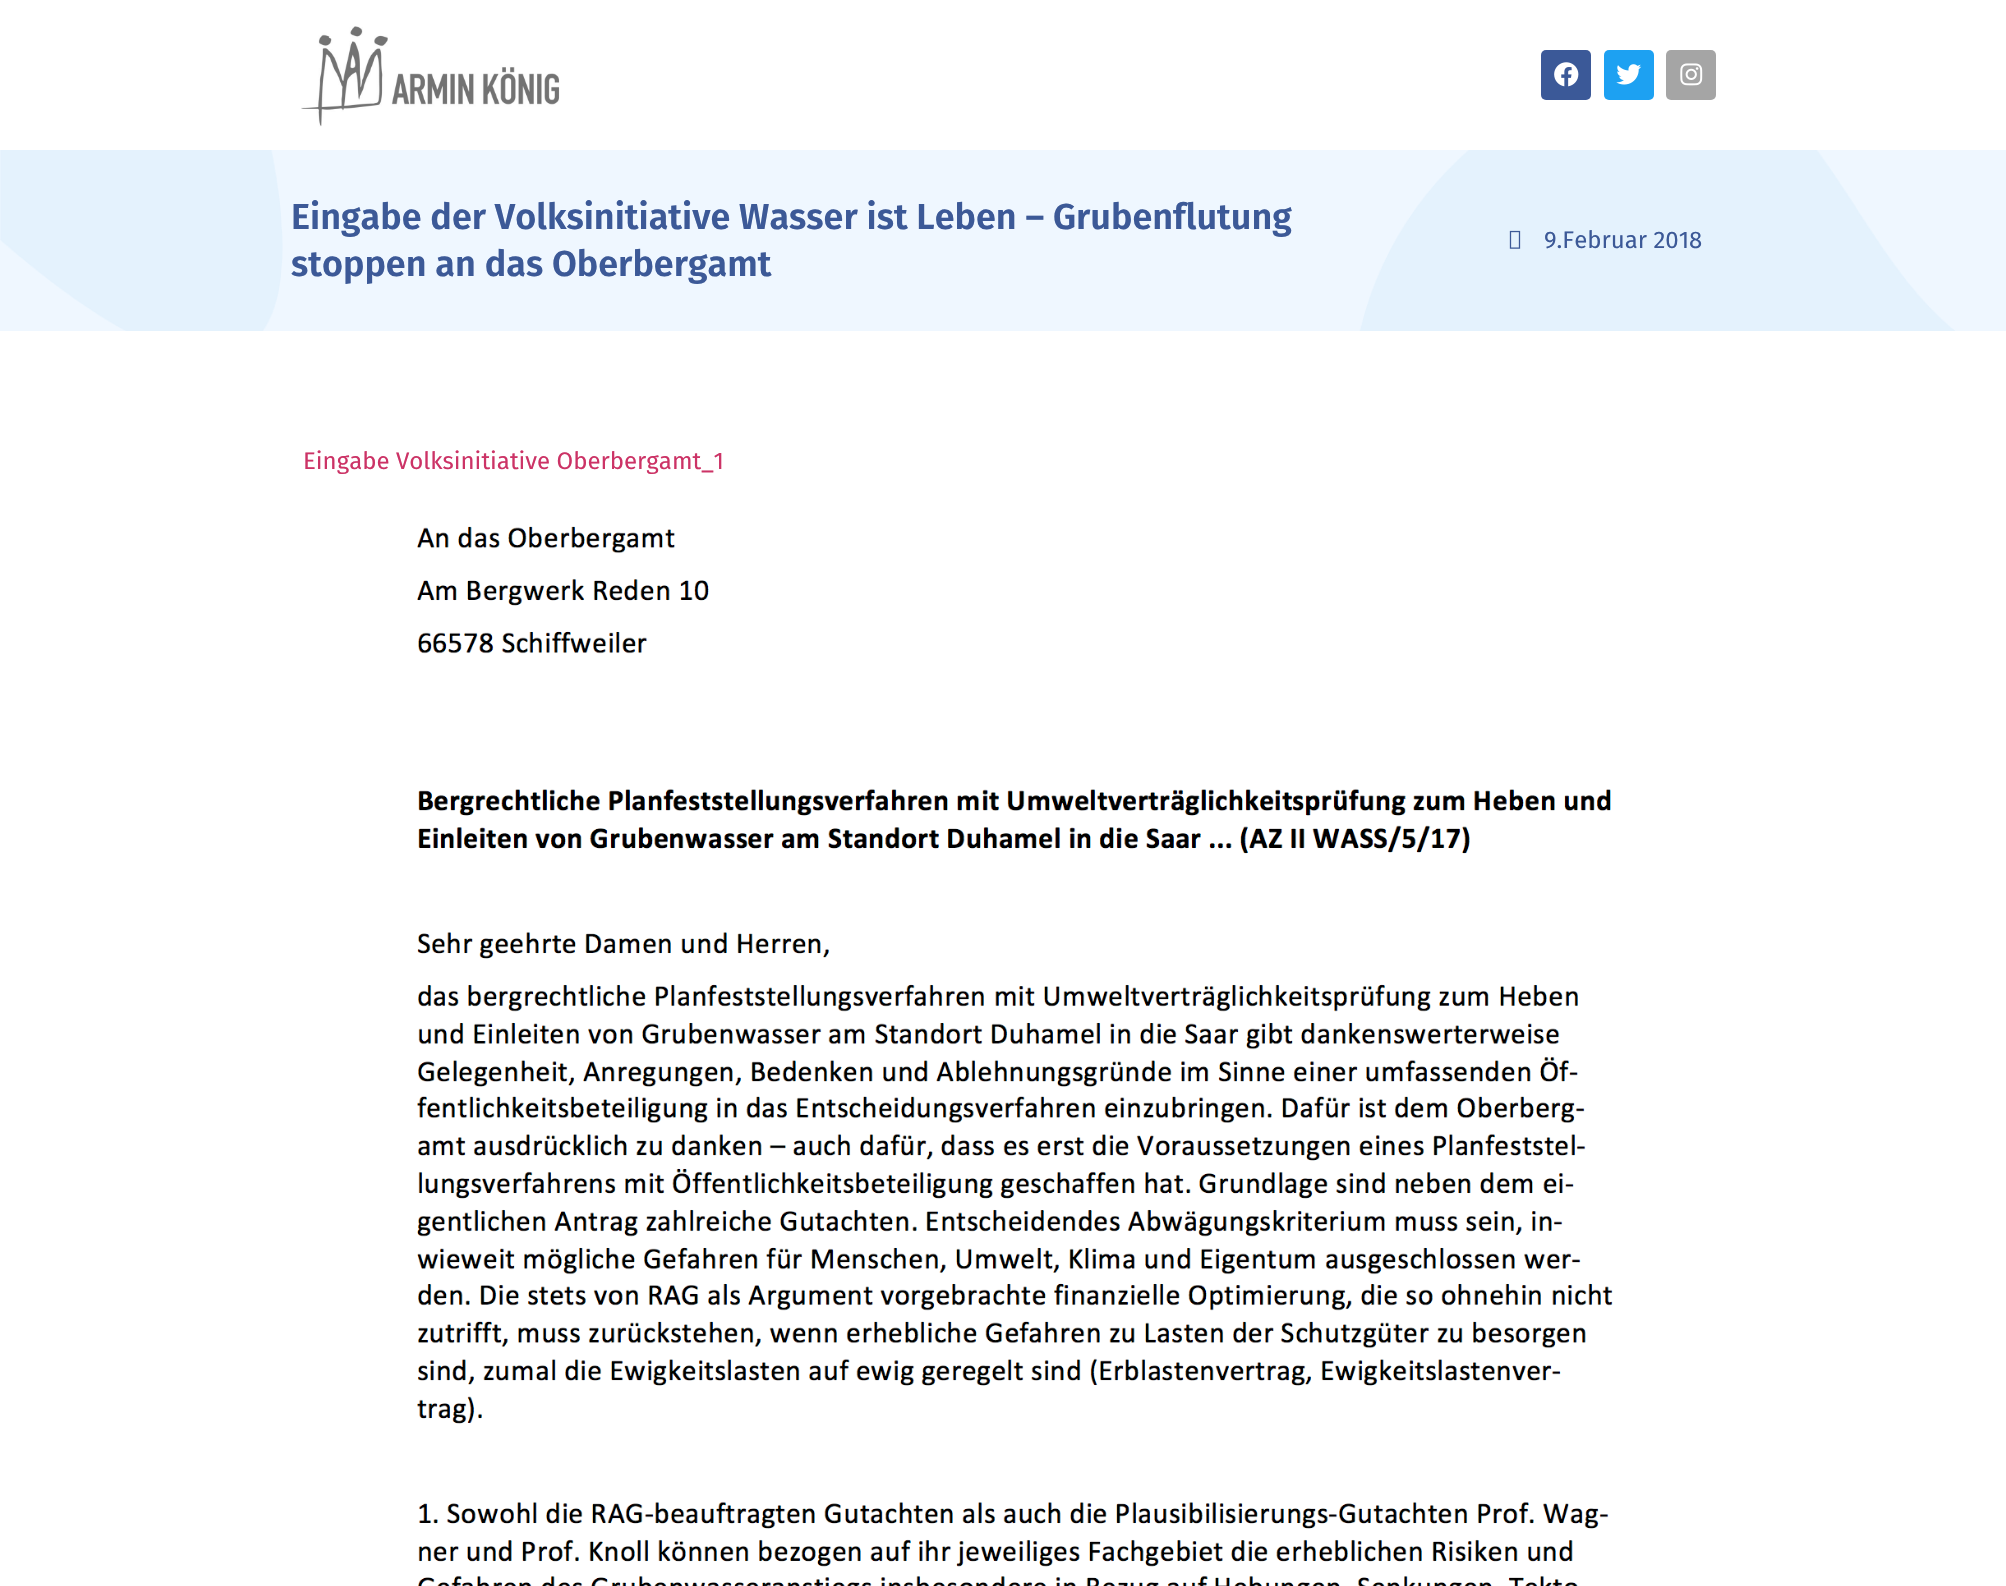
void draw(SkCanvas* canvas) {
	SkPaint fill;
	fill.setAntiAlias(true);
	auto makeFont = [&](const char* family, int weight, float size, bool italic = false) {
		SkFontStyle style(weight, SkFontStyle::kNormal_Width,
			italic ? SkFontStyle::kItalic_Slant : SkFontStyle::kUpright_Slant);
		SkFont result(fontMgr->matchFamilyStyle(family, style), size);
		result.setSubpixel(true);
		return result;
	};
	auto text = [&](const char* s, float x, float y, const SkFont& font) {
		canvas->drawString(s, x, y, font, fill);
	};
	auto box = [&](float l, float t, float r, float b) {
		canvas->drawRect(SkRect::MakeLTRB(l, t, r, b), fill);
	};
	auto roundBox = [&](float l, float t, float r, float b, float radius) {
		canvas->drawRoundRect(SkRect::MakeLTRB(l, t, r, b), radius, radius, fill);
	};
	auto picture = [&](const char* path, float l, float t, float r, float b) {
		auto image = SkImages::DeferredFromEncodedData(SkData::MakeFromFileName(path));
		canvas->drawImageRect(image, SkRect::MakeLTRB(l, t, r, b), SkSamplingOptions());
	};
	canvas->clear(0xFFFFFFFF);
	picture("image0.png", 301, 26, 560, 127);
	fill.setColor(0xFF3B5998);
	roundBox(1541, 50, 1591, 100, 5);
	picture("image1.png", 1554, 62, 1579, 87);
	fill.setColor(0xFF1DA1F2);
	roundBox(1604, 50, 1654, 100, 5);
	picture("image2.png", 1616, 64, 1642, 85);
	fill.setColor(0xFFA5A5A5);
	roundBox(1666, 50, 1716, 100, 5);
	picture("image3.png", 1680, 63, 1703, 86);
	fill.setColor(0xFFEFF7FF);
	box(0, 150, 2006, 331);
	picture("image4.png", 0, 150, 1955, 331);
	picture("image5.png", 1509, 230, 1521, 249);
	picture("image6.png", 417, 526, 1613, 1586);
	auto font1 = makeFont("Fira Sans", 600, 36);
	fill.setColor(0xFF3C5997);
	text("Eingabe der Volksinitiative Wasser ist Leben – Grubenflutung", 291, 229, font1);
	text("stoppen an das Oberbergamt", 291, 276, font1);
	auto font2 = makeFont("Fira Sans", 400, 24);
	text("9.Februar 2018", 1544, 248, font2);
	fill.setColor(0xFFCC3366);
	text("Eingabe Volksinitiative Oberbergamt_1", 303, 469, font2);
}
